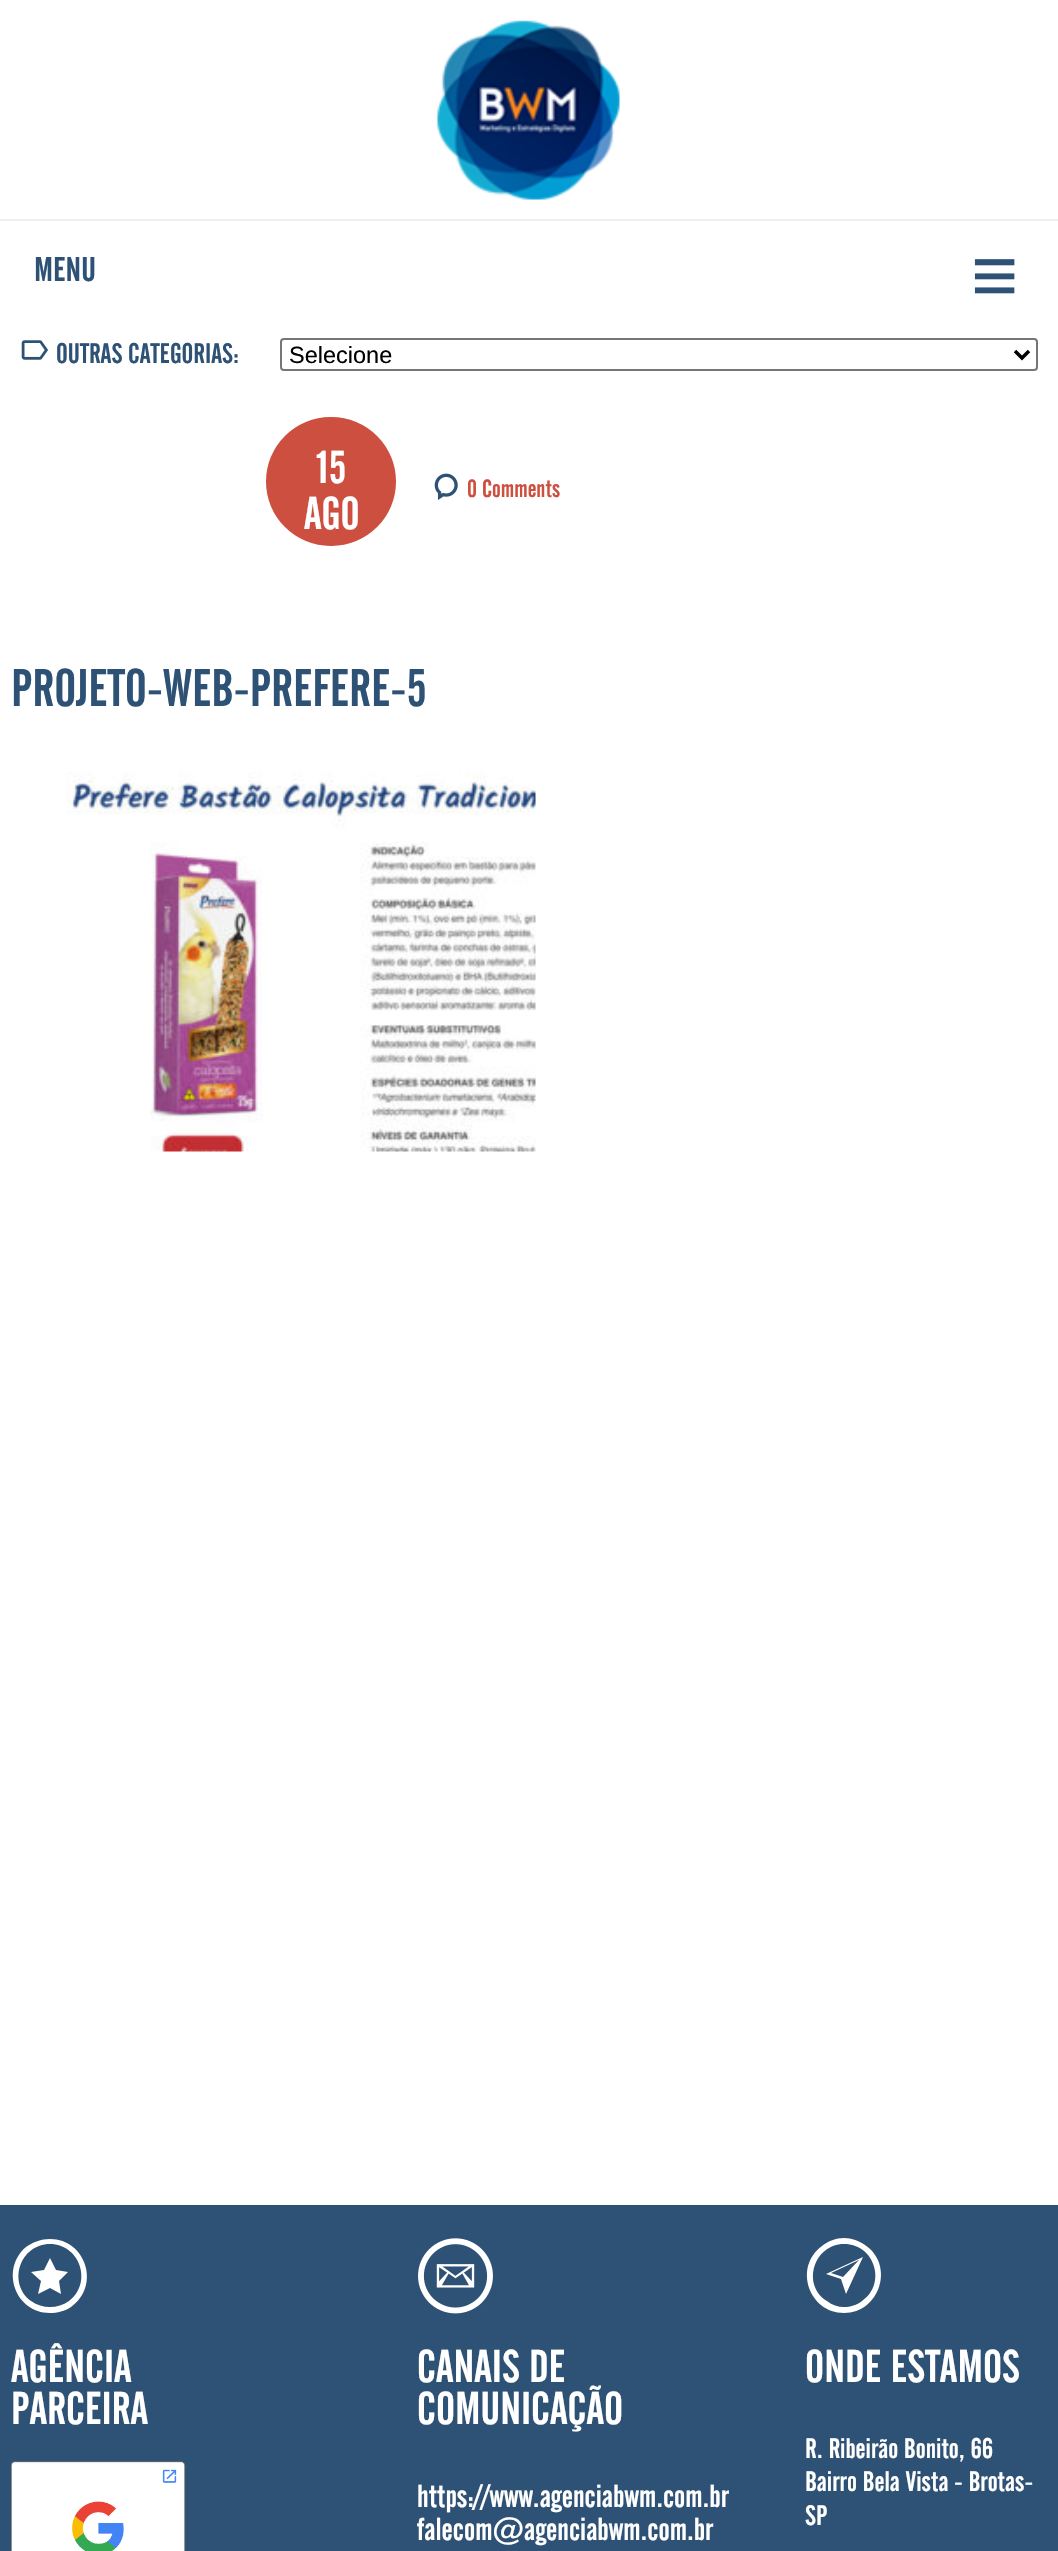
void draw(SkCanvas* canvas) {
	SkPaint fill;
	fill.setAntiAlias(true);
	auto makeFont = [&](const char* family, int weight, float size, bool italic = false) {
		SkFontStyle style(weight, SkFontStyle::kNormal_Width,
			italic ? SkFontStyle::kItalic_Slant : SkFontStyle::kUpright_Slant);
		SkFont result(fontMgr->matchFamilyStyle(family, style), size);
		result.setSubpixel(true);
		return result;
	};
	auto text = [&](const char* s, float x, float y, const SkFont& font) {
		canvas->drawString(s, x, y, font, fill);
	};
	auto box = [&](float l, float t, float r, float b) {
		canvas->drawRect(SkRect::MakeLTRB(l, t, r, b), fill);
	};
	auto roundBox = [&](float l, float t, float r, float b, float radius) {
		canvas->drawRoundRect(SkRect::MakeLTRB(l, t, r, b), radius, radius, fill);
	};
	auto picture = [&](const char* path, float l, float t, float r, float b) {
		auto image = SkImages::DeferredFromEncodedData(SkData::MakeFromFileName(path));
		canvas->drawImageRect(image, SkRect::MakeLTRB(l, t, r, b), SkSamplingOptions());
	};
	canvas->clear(0xFFFFFFFF);
	picture("image0.png", 437, 20, 620, 200);
	fill.setColor(0xFFECF0F1);
	box(0, 219, 1058, 221);
	picture("image1.png", 21, 340, 48, 360);
	fill.setStyle(SkPaint::kStroke_Style);
	fill.setStrokeWidth(2);
	fill.setColor(0xFF767676);
	canvas->drawRoundRect(SkRect::MakeLTRB(281, 339, 1037, 370), 3, 3, fill);
	fill.setStrokeWidth(3.5f);
	fill.setColor(0xFF000000);
	canvas->drawPath(SkPathBuilder().moveTo(1015, 351).lineTo(1022, 358).lineTo(1029, 351).detach(), fill);
	fill.setStyle(SkPaint::kFill_Style);
	fill.setColor(0xFFCD4F3F);
	roundBox(266, 417, 396, 546, 64.5f);
	picture("image2.png", 434, 473, 458, 500);
	picture("image3.png", 66, 772, 536, 1152);
	fill.setColor(0xFF2E5275);
	box(0, 2205, 1058, 2551);
	fill.setColor(0xFFFFFFFF);
	canvas->drawPath(SkPathBuilder().moveTo(56, 2270).lineTo(50, 2258).lineTo(44, 2270).lineTo(31, 2272).lineTo(41, 2281).lineTo(38, 2294).lineTo(50, 2288).lineTo(61, 2294).lineTo(59, 2281).lineTo(68, 2272).close().moveTo(50, 2239).cubicTo(41, 2239, 33, 2242, 26, 2247).cubicTo(0, 2269, 15, 2313, 50, 2313).cubicTo(57, 2313, 65, 2311, 71, 2307).cubicTo(101, 2286, 86, 2239, 50, 2239).close().moveTo(50, 2307).cubicTo(43, 2307, 37, 2305, 31, 2301).cubicTo(7, 2283, 20, 2244, 50, 2244).cubicTo(80, 2244, 93, 2283, 69, 2301).cubicTo(63, 2305, 57, 2307, 50, 2307).close().detach(), fill);
	picture("image4.png", 11, 2461, 186, 2551);
	picture("image5.png", 418, 2238, 493, 2314);
	canvas->drawPath(SkPathBuilder().moveTo(844, 2238).cubicTo(836, 2238, 828, 2241, 822, 2246).cubicTo(793, 2267, 809, 2313, 844, 2313).cubicTo(880, 2313, 895, 2265, 865, 2245).cubicTo(859, 2241, 852, 2238, 844, 2238).close().moveTo(844, 2307).cubicTo(838, 2307, 832, 2305, 827, 2301).cubicTo(801, 2285, 814, 2244, 844, 2244).cubicTo(875, 2244, 887, 2284, 862, 2301).cubicTo(857, 2305, 850, 2307, 844, 2307).close().moveTo(826, 2274).lineTo(841, 2279).lineTo(846, 2294).lineTo(863, 2257).close().moveTo(843, 2277).lineTo(831, 2273).lineTo(859, 2260).close().detach(), fill);
	auto font1 = makeFont("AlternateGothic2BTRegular", 400, 34);
	fill.setColor(0xFF2E5275);
	text("MENU", 34, 281, font1);
	auto font2 = makeFont("Liberation Sans", 700, 81);
	text("≡", 971, 303, font2);
	auto font3 = makeFont("AlternateGothic2BTRegular", 400, 28);
	text("OUTRAS CATEGORIAS:", 56, 363, font3);
	auto font4 = makeFont("Liberation Sans", 400, 23.5f);
	fill.setColor(0xFF000000);
	text("Selecione", 289, 363, font4);
	auto font5 = makeFont("AlternateGothic2BTRegular", 400, 45.5f);
	fill.setColor(0xFFFFFFFF);
	text("15", 317, 483, font5);
	text("AGO", 304, 529, font5);
	auto font6 = makeFont("AlternateGothic2BTRegular", 400, 24.5f);
	fill.setColor(0xFFCD4F3F);
	text("0 Comments", 467, 497, font6);
	auto font7 = makeFont("AlternateGothic2BTRegular", 400, 52.5f);
	fill.setColor(0xFF2E5275);
	text("PROJETO-WEB-PREFERE-5", 11, 706, font7);
	fill.setColor(0xFFFFFFFF);
	text("AGÊNCIA", 11, 2382, font5);
	text("PARCEIRA", 11, 2424, font5);
	text("CANAIS DE", 417, 2382, font5);
	text("COMUNICAÇÃO", 417, 2424, font5);
	auto font8 = makeFont("AlternateGothic2BTRegular", 400, 31.5f);
	text("https://www.agenciabwm.com.br", 417, 2507, font8);
	text("falecom@agenciabwm.com.br", 417, 2540, font8);
	text("ONDE ESTAMOS", 805, 2382, font5);
	text("R. Ribeirão Bonito, 66", 805, 2458, font3);
	text("Bairro Bela Vista - Brotas-", 805, 2491, font3);
	text("SP", 805, 2525, font3);
}
